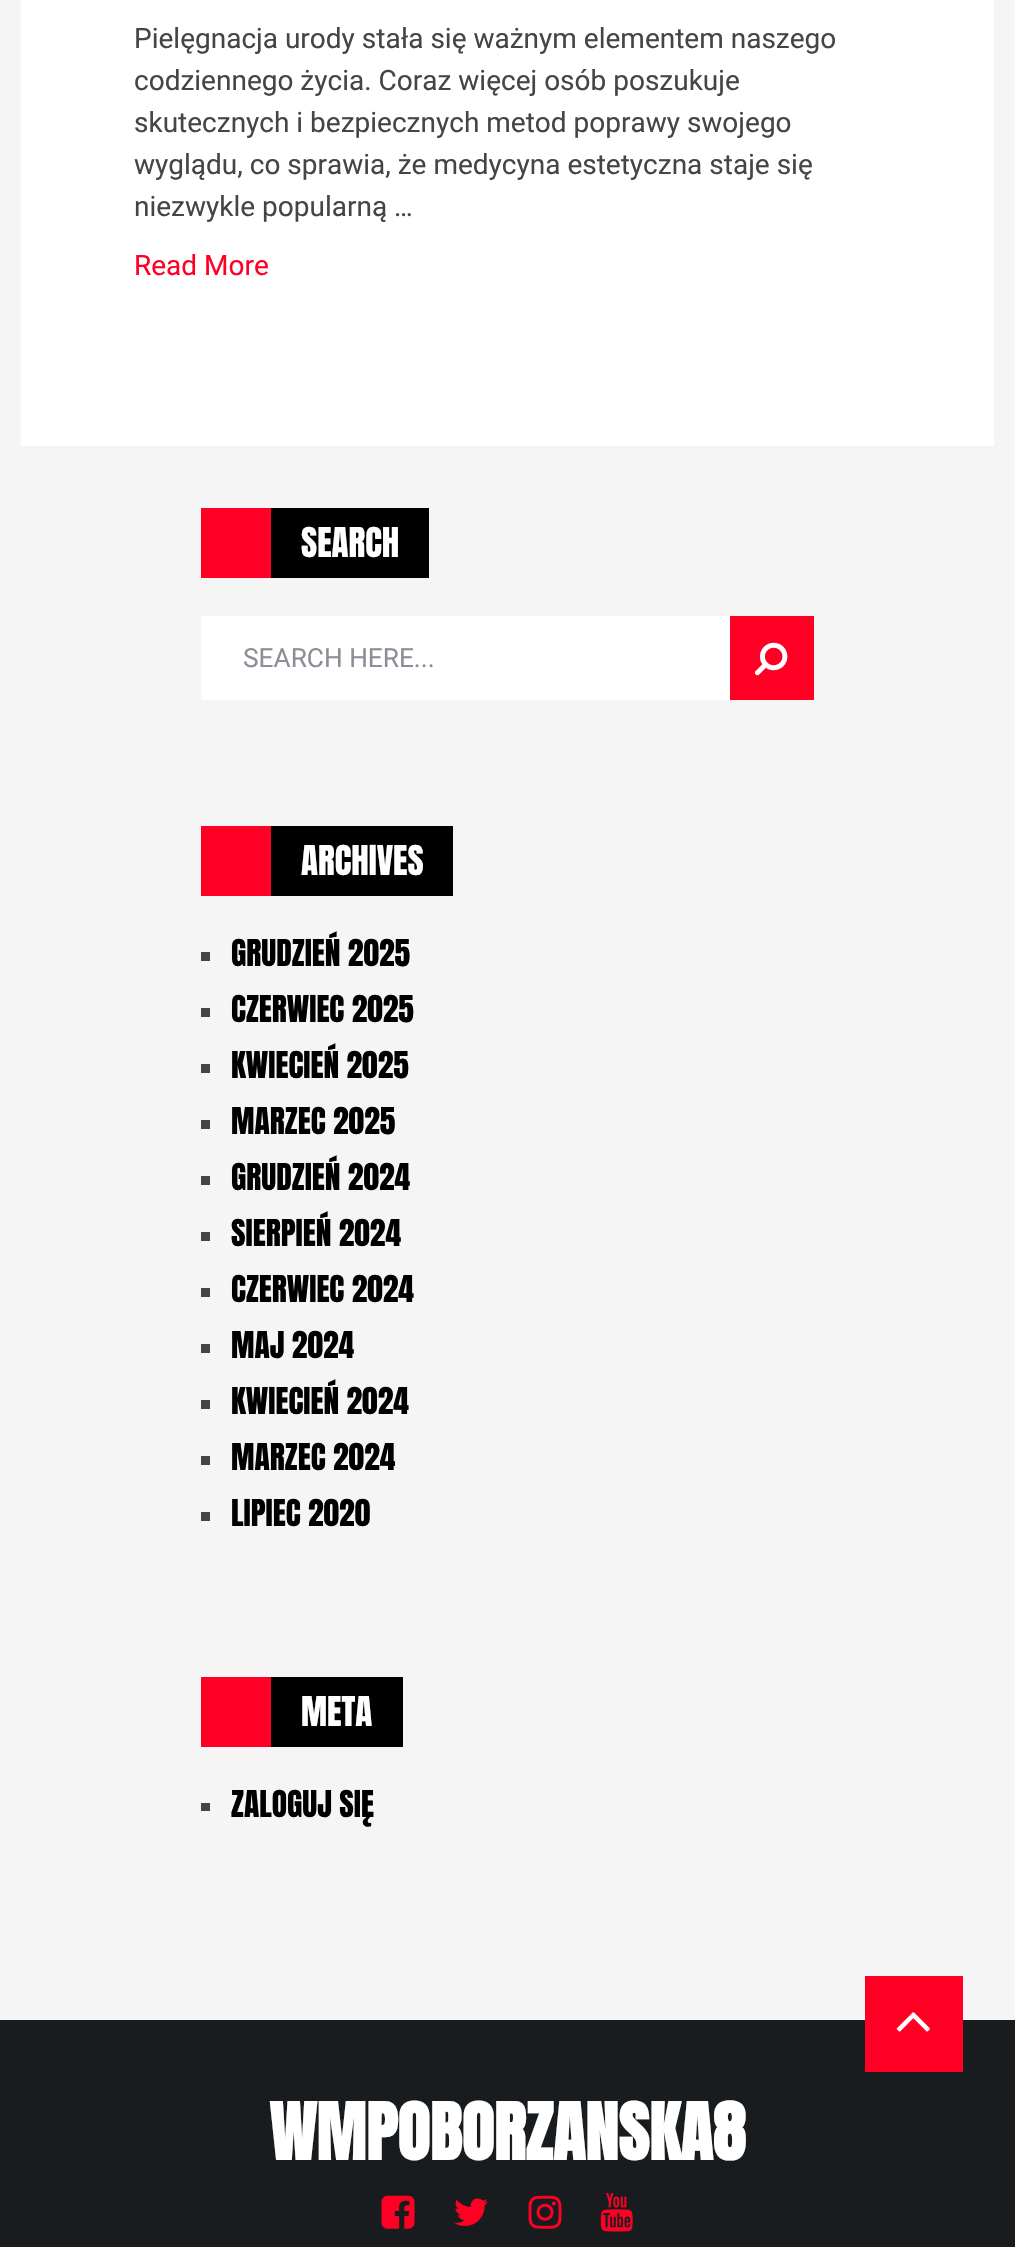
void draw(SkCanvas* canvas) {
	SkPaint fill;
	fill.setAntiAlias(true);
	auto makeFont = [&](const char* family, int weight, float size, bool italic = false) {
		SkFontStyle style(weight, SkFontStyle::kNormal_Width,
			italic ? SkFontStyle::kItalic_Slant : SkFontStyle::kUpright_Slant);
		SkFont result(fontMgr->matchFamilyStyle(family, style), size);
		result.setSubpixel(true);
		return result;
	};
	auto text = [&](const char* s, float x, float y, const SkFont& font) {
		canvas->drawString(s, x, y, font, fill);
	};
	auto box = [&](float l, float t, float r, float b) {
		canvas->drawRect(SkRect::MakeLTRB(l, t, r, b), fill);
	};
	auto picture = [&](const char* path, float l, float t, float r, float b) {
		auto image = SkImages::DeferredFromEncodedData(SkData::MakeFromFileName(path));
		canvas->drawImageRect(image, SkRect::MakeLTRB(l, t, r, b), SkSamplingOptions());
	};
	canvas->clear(0xFFF5F5F5);
	fill.setColor(0xFFFFFFFF);
	box(21, 0, 994, 446);
	fill.setColor(0xFF000000);
	box(271, 508, 429, 578);
	fill.setColor(0xFFFF0024);
	box(201, 508, 271, 578);
	fill.setColor(0xFFFFFFFF);
	box(201, 616, 730, 700);
	fill.setColor(0xFFFF0024);
	box(730, 616, 814, 700);
	picture("image0.png", 754, 642, 788, 676);
	fill.setColor(0xFF000000);
	box(271, 826, 453, 896);
	fill.setColor(0xFFFF0024);
	box(201, 826, 271, 896);
	fill.setColor(0xFF454545);
	box(201, 952, 210, 961);
	box(201, 1008, 210, 1017);
	box(201, 1064, 210, 1073);
	box(201, 1120, 210, 1129);
	box(201, 1176, 210, 1185);
	box(201, 1232, 210, 1241);
	box(201, 1288, 210, 1297);
	box(201, 1344, 210, 1353);
	box(201, 1400, 210, 1409);
	box(201, 1456, 210, 1465);
	box(201, 1512, 210, 1521);
	fill.setColor(0xFF000000);
	box(271, 1677, 403, 1747);
	fill.setColor(0xFFFF0024);
	box(201, 1677, 271, 1747);
	fill.setColor(0xFF454545);
	box(201, 1803, 210, 1811);
	fill.setColor(0xFF191C1E);
	box(0, 2020, 1015, 2247);
	picture("image1.png", 381, 2195, 415, 2229);
	picture("image2.png", 454, 2198, 488, 2226);
	picture("image3.png", 528, 2195, 562, 2229);
	picture("image4.png", 600, 2193, 633, 2232);
	fill.setColor(0xFFFF0024);
	box(865, 1976, 963, 2072);
	picture("image5.png", 896, 2012, 930, 2032);
	auto font1 = makeFont("Roboto", 400, 28);
	fill.setColor(0xFF454545);
	text("Pielęgnacja urody stała się ważnym elementem naszego", 134, 48, font1);
	text("codziennego życia. Coraz więcej osób poszukuje", 134, 90, font1);
	text("skutecznych i bezpiecznych metod poprawy swojego", 134, 132, font1);
	text("wyglądu, co sprawia, że medycyna estetyczna staje się", 134, 174, font1);
	text("niezwykle popularną …", 134, 216, font1);
	fill.setColor(0xFFFF0024);
	text("Read More", 134, 275, font1);
	auto font2 = makeFont("Anton", 400, 35);
	fill.setColor(0xFFFFFFFF);
	text("SEARCH", 301, 557, font2);
	auto font3 = makeFont("Roboto", 400, 26.25f);
	fill.setColor(0xFF8A8E96);
	text("SEARCH HERE...", 243, 667, font3);
	fill.setColor(0xFFFFFFFF);
	text("ARCHIVES", 301, 875, font2);
	auto font4 = makeFont("Anton", 400, 31.5f);
	fill.setColor(0xFF000000);
	text("GRUDZIEŃ 2025", 231, 966, font4);
	text("CZERWIEC 2025", 231, 1022, font4);
	text("KWIECIEŃ 2025", 231, 1078, font4);
	text("MARZEC 2025", 231, 1134, font4);
	text("GRUDZIEŃ 2024", 231, 1190, font4);
	text("SIERPIEŃ 2024", 231, 1246, font4);
	text("CZERWIEC 2024", 231, 1302, font4);
	text("MAJ 2024", 231, 1358, font4);
	text("KWIECIEŃ 2024", 231, 1414, font4);
	text("MARZEC 2024", 231, 1470, font4);
	text("LIPIEC 2020", 231, 1526, font4);
	fill.setColor(0xFFFFFFFF);
	text("META", 301, 1726, font2);
	fill.setColor(0xFF000000);
	text("ZALOGUJ SIĘ", 231, 1817, font4);
	auto font5 = makeFont("Anton", 700, 66.5f);
	fill.setColor(0xFFFFFFFF);
	text("WMPOBORZANSKA8", 269, 2160, font5);
}
